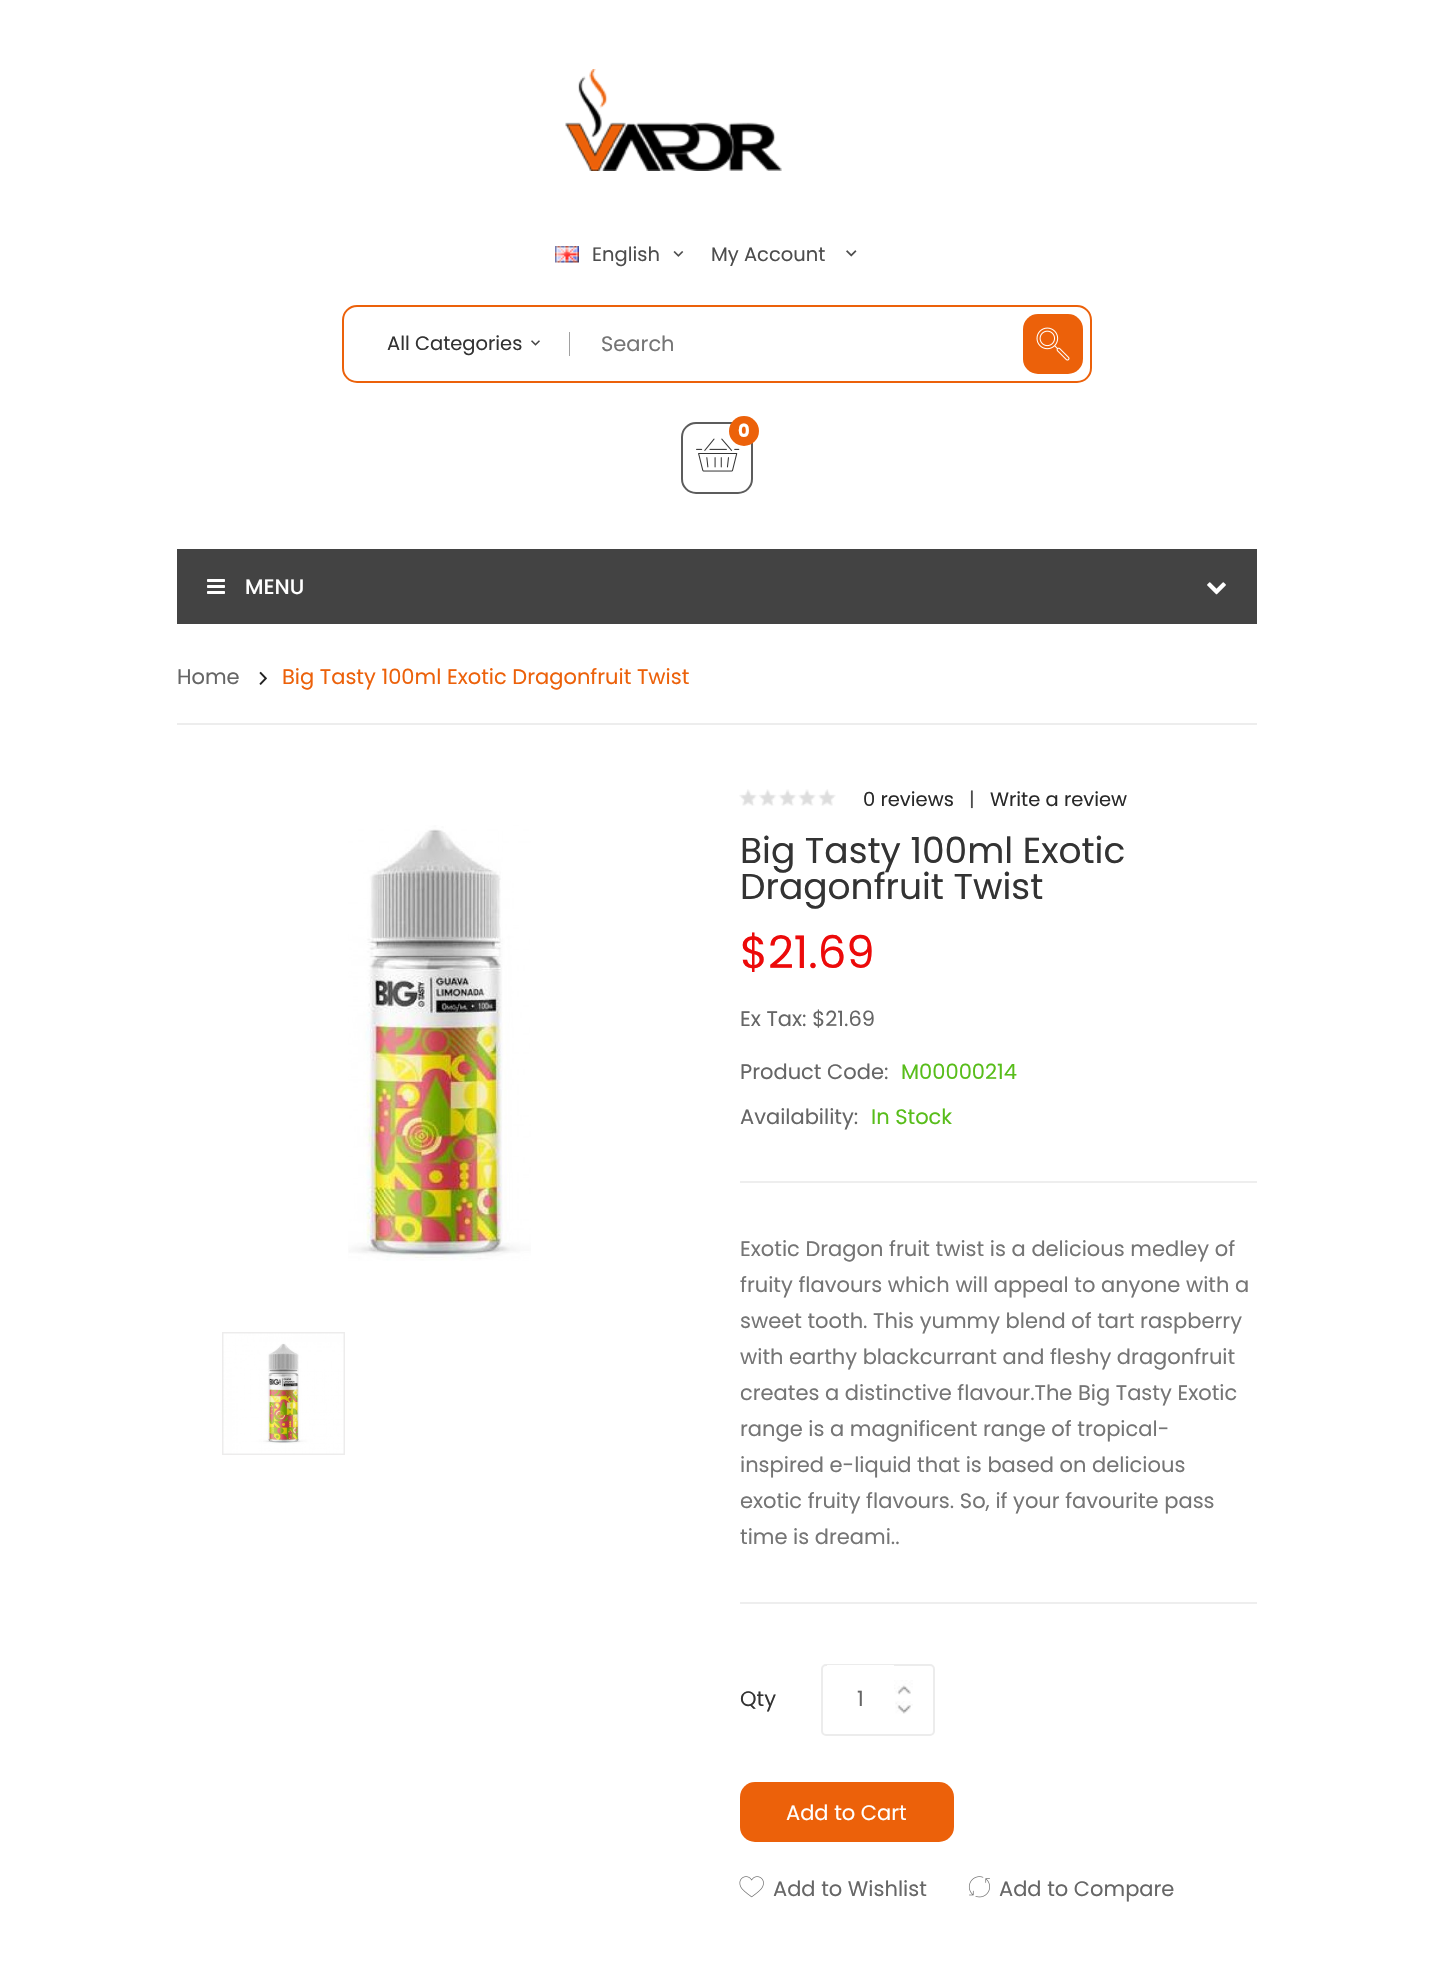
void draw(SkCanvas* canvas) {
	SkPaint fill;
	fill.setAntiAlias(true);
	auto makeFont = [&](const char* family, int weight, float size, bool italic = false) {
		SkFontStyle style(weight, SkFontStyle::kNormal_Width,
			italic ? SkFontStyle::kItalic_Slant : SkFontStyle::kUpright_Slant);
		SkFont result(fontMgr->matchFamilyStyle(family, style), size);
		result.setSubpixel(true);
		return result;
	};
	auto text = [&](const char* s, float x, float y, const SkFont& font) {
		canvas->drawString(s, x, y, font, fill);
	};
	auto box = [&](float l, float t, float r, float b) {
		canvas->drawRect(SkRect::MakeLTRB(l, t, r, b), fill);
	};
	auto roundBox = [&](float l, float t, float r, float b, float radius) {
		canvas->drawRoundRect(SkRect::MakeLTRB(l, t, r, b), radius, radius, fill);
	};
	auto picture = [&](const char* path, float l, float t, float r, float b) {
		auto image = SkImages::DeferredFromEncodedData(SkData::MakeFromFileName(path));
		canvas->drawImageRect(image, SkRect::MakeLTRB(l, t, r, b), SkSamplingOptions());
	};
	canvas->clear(0xFFFFFFFF);
	picture("image0.png", 565, 69, 782, 171);
	picture("image1.png", 555, 246, 579, 263);
	picture("image2.png", 673, 251, 684, 257);
	picture("image3.png", 846, 250, 857, 257);
	fill.setStyle(SkPaint::kStroke_Style);
	fill.setStrokeWidth(2);
	fill.setColor(0xFFEC610A);
	canvas->drawRoundRect(SkRect::MakeLTRB(343, 306, 1091, 382), 14, 14, fill);
	picture("image4.png", 531, 340, 540, 346);
	fill.setStyle(SkPaint::kFill_Style);
	fill.setColor(0xFFA1A1A1);
	box(569, 332, 570, 356);
	fill.setColor(0xFFEC610A);
	roundBox(1023, 314, 1083, 374, 15);
	picture("image5.png", 1036, 327, 1070, 361);
	fill.setStyle(SkPaint::kStroke_Style);
	fill.setColor(0xFF5C5C5C);
	canvas->drawRoundRect(SkRect::MakeLTRB(682, 423, 752, 493), 14, 14, fill);
	picture("image6.png", 696, 438, 740, 472);
	fill.setStyle(SkPaint::kFill_Style);
	fill.setColor(0xFFEC610A);
	canvas->drawCircle(744, 431, 15, fill);
	fill.setColor(0xFF434343);
	box(177, 549, 1257, 624);
	picture("image7.png", 207, 579, 225, 594);
	picture("image8.png", 1207, 582, 1226, 595);
	fill.setColor(0xFFEDEDED);
	box(177, 723, 1257, 725);
	picture("image9.png", 259, 671, 267, 685);
	picture("image10.png", 348, 825, 531, 1261);
	fill.setStyle(SkPaint::kStroke_Style);
	fill.setColor(0xFFEDECEC);
	canvas->drawRect(SkRect::MakeLTRB(223, 1333, 344, 1454), fill);
	picture("image11.png", 223, 1333, 344, 1454);
	picture("image12.png", 739, 789, 836, 806);
	fill.setStyle(SkPaint::kFill_Style);
	fill.setColor(0xFFEEEEEE);
	box(740, 1181, 1257, 1183);
	box(740, 1602, 1257, 1604);
	fill.setStyle(SkPaint::kStroke_Style);
	fill.setColor(0xFFECECEC);
	canvas->drawRoundRect(SkRect::MakeLTRB(822, 1665, 934, 1735), 4, 4, fill);
	picture("image13.png", 894, 1680, 913, 1695);
	fill.setStyle(SkPaint::kFill_Style);
	fill.setColor(0xFFFFFFFF);
	box(827, 1665, 894, 1666);
	picture("image14.png", 895, 1701, 913, 1714);
	fill.setColor(0xFFEC610A);
	roundBox(740, 1782, 954, 1842, 15);
	picture("image15.png", 739, 1876, 764, 1898);
	picture("image16.png", 968, 1876, 990, 1898);
	auto font1 = makeFont("Poppins", 400, 19.5f);
	fill.setColor(0xFF4D4D4D);
	text("English", 592, 261, font1);
	text("My Account", 711, 261, font1);
	fill.setColor(0xFF333333);
	text("All Categories", 387, 350, font1);
	auto font2 = makeFont("Poppins", 400, 21);
	fill.setColor(0xFF757575);
	text("Search", 601, 351, font2);
	auto font3 = makeFont("Poppins", 700, 18);
	fill.setColor(0xFFFFFFFF);
	text("0", 738, 437, font3);
	auto font4 = makeFont("Poppins", 500, 21);
	text("MENU", 245, 594, font4);
	fill.setColor(0xFF666666);
	text("Home", 177, 684, font2);
	fill.setColor(0xFFEC610A);
	text("Big Tasty 100ml Exotic Dragonfruit Twist", 282, 684, font2);
	fill.setColor(0xFF292929);
	text("0 reviews", 863, 806, font1);
	fill.setColor(0xFF4D4D4D);
	text("|", 969, 806, font1);
	fill.setColor(0xFF292929);
	text("Write a review", 990, 806, font1);
	auto font5 = makeFont("Poppins", 400, 36);
	fill.setColor(0xFF333333);
	text("Big Tasty 100ml Exotic", 740, 863, font5);
	text("Dragonfruit Twist", 740, 899, font5);
	auto font6 = makeFont("Poppins", 400, 45);
	fill.setColor(0xFFEC0A0A);
	text("$21.69", 740, 968, font6);
	fill.setColor(0xFF666666);
	text("Ex Tax: $21.69", 740, 1026, font2);
	text("Product Code:", 740, 1079, font2);
	fill.setColor(0xFF58BD1A);
	text("M00000214", 901, 1079, font2);
	fill.setColor(0xFF666666);
	text("Availability:", 740, 1124, font2);
	fill.setColor(0xFF58BD1A);
	text("In Stock", 871, 1124, font2);
	fill.setColor(0xFF757575);
	text("Exotic Dragon fruit twist is a delicious medley of", 740, 1256, font2);
	text("fruity flavours which will appeal to anyone with a", 740, 1292, font2);
	text("sweet tooth. This yummy blend of tart raspberry", 740, 1328, font2);
	text("with earthy blackcurrant and fleshy dragonfruit", 740, 1364, font2);
	text("creates a distinctive flavour.The Big Tasty Exotic", 740, 1400, font2);
	text("range is a magnificent range of tropical-", 740, 1436, font2);
	text("inspired e-liquid that is based on delicious", 740, 1472, font2);
	text("exotic fruity flavours. So, if your favourite pass", 740, 1508, font2);
	text("time is dreami..", 740, 1544, font2);
	fill.setColor(0xFF333333);
	text("Qty", 740, 1706, font2);
	fill.setColor(0xFF666666);
	text("1", 857, 1706, font2);
	fill.setColor(0xFFFFFFFF);
	text("Add to Cart", 786, 1820, font2);
	fill.setColor(0xFF666666);
	text("Add to Wishlist", 773, 1896, font2);
	text("Add to Compare", 999, 1896, font2);
}
